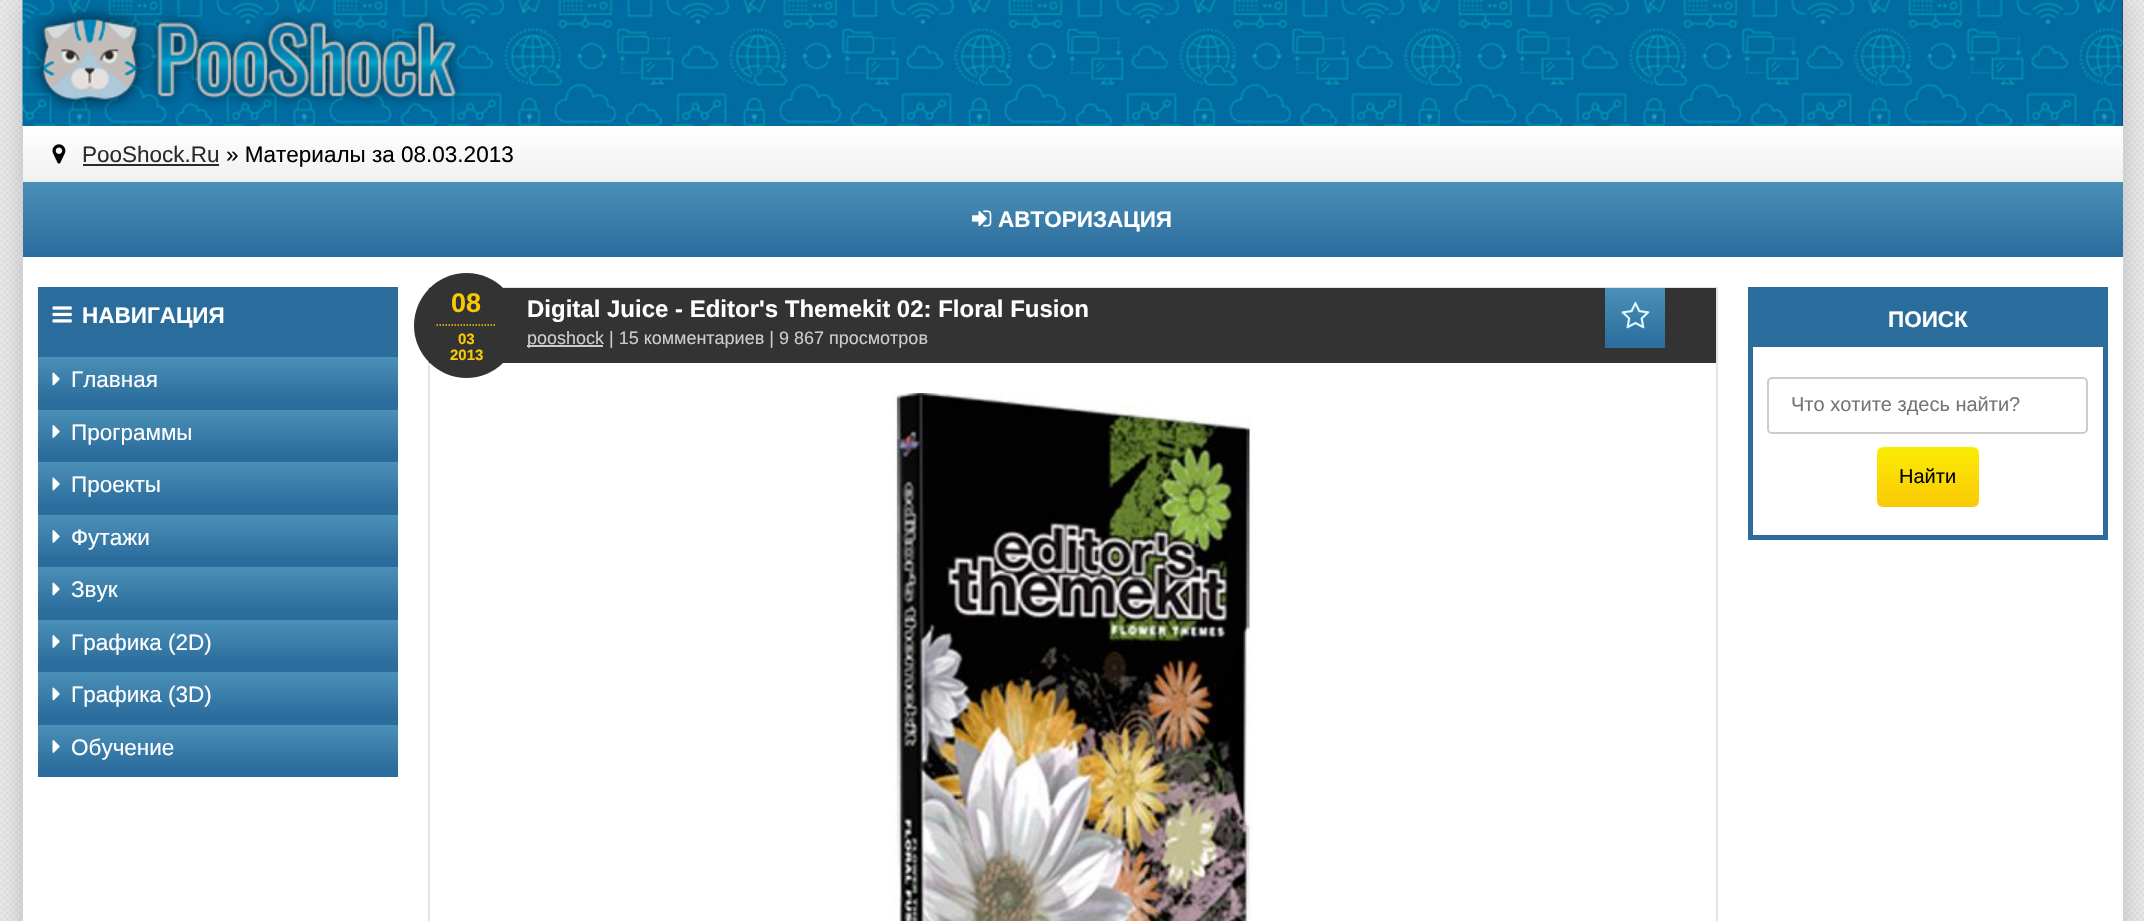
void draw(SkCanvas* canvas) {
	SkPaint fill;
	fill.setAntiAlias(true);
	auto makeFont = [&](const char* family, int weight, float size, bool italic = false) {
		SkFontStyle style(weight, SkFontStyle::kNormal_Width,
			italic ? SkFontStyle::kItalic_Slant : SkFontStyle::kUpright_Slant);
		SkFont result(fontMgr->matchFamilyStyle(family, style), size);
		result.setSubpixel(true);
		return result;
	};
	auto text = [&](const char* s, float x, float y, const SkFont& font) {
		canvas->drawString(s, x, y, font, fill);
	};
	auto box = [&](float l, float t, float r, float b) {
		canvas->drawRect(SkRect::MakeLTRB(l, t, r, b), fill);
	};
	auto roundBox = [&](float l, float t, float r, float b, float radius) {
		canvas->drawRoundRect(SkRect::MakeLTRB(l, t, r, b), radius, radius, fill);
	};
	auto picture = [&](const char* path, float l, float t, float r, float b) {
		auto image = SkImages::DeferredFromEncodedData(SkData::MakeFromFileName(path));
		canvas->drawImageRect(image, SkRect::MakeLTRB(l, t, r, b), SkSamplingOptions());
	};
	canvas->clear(0xFFFFFFFF);
	picture("image0.png", 0, 0, 2144, 921);
	fill.setColor(0x33000000);
	fill.setMaskFilter(SkMaskFilter::MakeBlur(kNormal_SkBlurStyle, 15));
	canvas->drawRect(SkRect::MakeLTRB(23, 0, 2123, 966), fill);
	fill.setMaskFilter(nullptr);
	fill.setColor(0xFFFFFFFF);
	box(23, 257, 2123, 921);
	fill.setColor(0xFF333333);
	box(2122, 0, 2123, 126);
	picture("image1.png", 22, 0, 2123, 126);
	picture("image2.png", 30, 5, 464, 113);
	{
		const SkColor colors[] = {0xFFFFFFFF, 0xFFF0F0F0};
		const float stops[] = {0, 1};
		const SkPoint ends[] = {{1073, 126}, {1073, 182}};
		fill.setShader(SkGradientShader::MakeLinear(ends, colors, stops, 2, SkTileMode::kClamp));
		fill.setAlpha(255);
	}
	box(23, 126, 2123, 182);
	picture("image3.png", 52, 144, 66, 164);
	fill.setShader(nullptr);
	fill.setColor(0xFF2A2A2A);
	box(83, 164, 219, 166);
	{
		const SkColor colors[] = {0xFF4B90B8, 0xFF2A6C9C};
		const float stops[] = {0, 1};
		const SkPoint ends[] = {{1073, 181}, {1073, 257}};
		fill.setShader(SkGradientShader::MakeLinear(ends, colors, stops, 2, SkTileMode::kClamp));
		fill.setAlpha(255);
	}
	box(23, 182, 2123, 257);
	picture("image4.png", 972, 210, 992, 227);
	fill.setShader(nullptr);
	fill.setColor(0xFF2A6C9C);
	box(38, 287, 398, 777);
	picture("image5.png", 52, 306, 72, 323);
	{
		const SkColor colors[] = {0xFF4B90B8, 0xFF2A6C9C};
		const float stops[] = {0, 1};
		const SkPoint ends[] = {{218, 357}, {218, 402}};
		fill.setShader(SkGradientShader::MakeLinear(ends, colors, stops, 2, SkTileMode::kClamp));
		fill.setAlpha(255);
	}
	box(38, 357, 398, 399);
	picture("image6.png", 52, 372, 60, 386);
	{
		const SkColor colors[] = {0xFF4B90B8, 0xFF2A6C9C};
		const float stops[] = {0, 1};
		const SkPoint ends[] = {{218, 410}, {218, 455}};
		fill.setShader(SkGradientShader::MakeLinear(ends, colors, stops, 2, SkTileMode::kClamp));
		fill.setAlpha(255);
	}
	box(38, 410, 398, 452);
	picture("image7.png", 52, 425, 60, 438);
	{
		const SkColor colors[] = {0xFF4B90B8, 0xFF2A6C9C};
		const float stops[] = {0, 1};
		const SkPoint ends[] = {{218, 462}, {218, 507}};
		fill.setShader(SkGradientShader::MakeLinear(ends, colors, stops, 2, SkTileMode::kClamp));
		fill.setAlpha(255);
	}
	box(38, 462, 398, 504);
	picture("image6.png", 52, 477, 60, 491);
	{
		const SkColor colors[] = {0xFF4B90B8, 0xFF2A6C9C};
		const float stops[] = {0, 1};
		const SkPoint ends[] = {{218, 515}, {218, 560}};
		fill.setShader(SkGradientShader::MakeLinear(ends, colors, stops, 2, SkTileMode::kClamp));
		fill.setAlpha(255);
	}
	box(38, 515, 398, 557);
	picture("image7.png", 52, 530, 60, 543);
	{
		const SkColor colors[] = {0xFF4B90B8, 0xFF2A6C9C};
		const float stops[] = {0, 1};
		const SkPoint ends[] = {{218, 567}, {218, 612}};
		fill.setShader(SkGradientShader::MakeLinear(ends, colors, stops, 2, SkTileMode::kClamp));
		fill.setAlpha(255);
	}
	box(38, 567, 398, 609);
	picture("image6.png", 52, 582, 60, 596);
	{
		const SkColor colors[] = {0xFF4B90B8, 0xFF2A6C9C};
		const float stops[] = {0, 1};
		const SkPoint ends[] = {{218, 620}, {218, 665}};
		fill.setShader(SkGradientShader::MakeLinear(ends, colors, stops, 2, SkTileMode::kClamp));
		fill.setAlpha(255);
	}
	box(38, 620, 398, 662);
	picture("image7.png", 52, 635, 60, 648);
	{
		const SkColor colors[] = {0xFF4B90B8, 0xFF2A6C9C};
		const float stops[] = {0, 1};
		const SkPoint ends[] = {{218, 672}, {218, 717}};
		fill.setShader(SkGradientShader::MakeLinear(ends, colors, stops, 2, SkTileMode::kClamp));
		fill.setAlpha(255);
	}
	box(38, 672, 398, 714);
	picture("image6.png", 52, 687, 60, 701);
	{
		const SkColor colors[] = {0xFF4B90B8, 0xFF2A6C9C};
		const float stops[] = {0, 1};
		const SkPoint ends[] = {{218, 725}, {218, 770}};
		fill.setShader(SkGradientShader::MakeLinear(ends, colors, stops, 2, SkTileMode::kClamp));
		fill.setAlpha(255);
	}
	box(38, 725, 398, 767);
	picture("image7.png", 52, 740, 60, 753);
	fill.setStyle(SkPaint::kStroke_Style);
	fill.setStrokeWidth(2);
	fill.setShader(nullptr);
	fill.setColor(0xFFE3E3E3);
	canvas->drawRect(SkRect::MakeLTRB(429, 288, 1717, 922), fill);
	fill.setStyle(SkPaint::kFill_Style);
	fill.setColor(0xFF333333);
	box(429, 288, 1716, 363);
	canvas->drawCircle(466.5f, 325.5f, 52.5f, fill);
	fill.setStyle(SkPaint::kStroke_Style);
	fill.setStrokeWidth(1.5f);
	fill.setColor(0xFFFAC905);
	fill.setPathEffect(SkDashPathEffect::Make({{1.5f, 1.5f}}, 0));
	canvas->drawPath(SkPathBuilder().moveTo(436.5f, 325).lineTo(496.5f, 325).detach(), fill);
	fill.setPathEffect(nullptr);
	fill.setStyle(SkPaint::kFill_Style);
	{
		const SkColor colors[] = {0xFF4B90B8, 0xFF2A6C9C};
		const float stops[] = {0, 1};
		const SkPoint ends[] = {{1635, 288}, {1635, 348}};
		fill.setShader(SkGradientShader::MakeLinear(ends, colors, stops, 2, SkTileMode::kClamp));
		fill.setAlpha(255);
	}
	box(1605, 288, 1665, 348);
	picture("image8.png", 1621, 301, 1650, 329);
	fill.setShader(nullptr);
	fill.setColor(0xFFCCCCCC);
	box(527, 345, 603, 347);
	picture("image9.png", 892, 393, 1253, 921);
	fill.setStyle(SkPaint::kStroke_Style);
	fill.setStrokeWidth(5);
	fill.setColor(0xFF2A6C9C);
	canvas->drawRect(SkRect::MakeLTRB(1750.5f, 289.5f, 2105.5f, 537.5f), fill);
	fill.setStyle(SkPaint::kFill_Style);
	box(1753, 292, 2103, 347);
	fill.setStyle(SkPaint::kStroke_Style);
	fill.setStrokeWidth(2);
	fill.setColor(0xFFCCCCCC);
	canvas->drawRoundRect(SkRect::MakeLTRB(1768, 378, 2087, 433), 4, 4, fill);
	fill.setStyle(SkPaint::kFill_Style);
	{
		const SkColor colors[] = {0xFFFAEC05, 0xFFFAC905};
		const float stops[] = {0, 1};
		const SkPoint ends[] = {{1928, 447}, {1928, 507}};
		fill.setShader(SkGradientShader::MakeLinear(ends, colors, stops, 2, SkTileMode::kClamp));
		fill.setAlpha(255);
	}
	roundBox(1877, 447, 1979, 507, 6);
	auto font1 = makeFont("Liberation Sans", 400, 22.5f);
	fill.setShader(nullptr);
	fill.setColor(0xFF2A2A2A);
	text("PooShock.Ru", 82, 162, font1);
	fill.setColor(0xFF000000);
	text("» Материалы за 08.03.2013", 226, 162, font1);
	auto font2 = makeFont("Liberation Sans", 700, 22.5f);
	fill.setColor(0xFFFFFFFF);
	text("АВТОРИЗАЦИЯ", 998, 227, font2);
	text("НАВИГАЦИЯ", 82, 323, font2);
	text("Главная", 71, 387, font1);
	text("Программы", 71, 440, font1);
	text("Проекты", 71, 492, font1);
	text("Футажи", 71, 545, font1);
	text("Звук", 71, 597, font1);
	text("Графика (2D)", 71, 650, font1);
	text("Графика (3D)", 71, 702, font1);
	text("Обучение", 71, 755, font1);
	auto font3 = makeFont("Liberation Sans", 700, 27);
	fill.setColor(0xFFFAC905);
	text("08", 451, 312, font3);
	auto font4 = makeFont("Liberation Sans", 700, 15);
	text("03", 458, 344, font4);
	text("2013", 450, 360, font4);
	auto font5 = makeFont("Liberation Sans", 700, 24);
	fill.setColor(0xFFFFFFFF);
	text("Digital Juice - Editor's Themekit 02: Floral Fusion", 527, 317, font5);
	auto font6 = makeFont("Liberation Sans", 400, 18);
	fill.setColor(0xFFCCCCCC);
	text("pooshock | 15 комментариев | 9 867 просмотров", 527, 344, font6);
	fill.setColor(0xFFFFFFFF);
	text("ПОИСК", 1888, 327, font2);
	auto font7 = makeFont("Liberation Sans", 400, 20);
	fill.setColor(0xFF757575);
	text("Что хотите здесь найти?", 1791, 411, font7);
	fill.setColor(0xFF000000);
	text("Найти", 1899, 483, font7);
}
